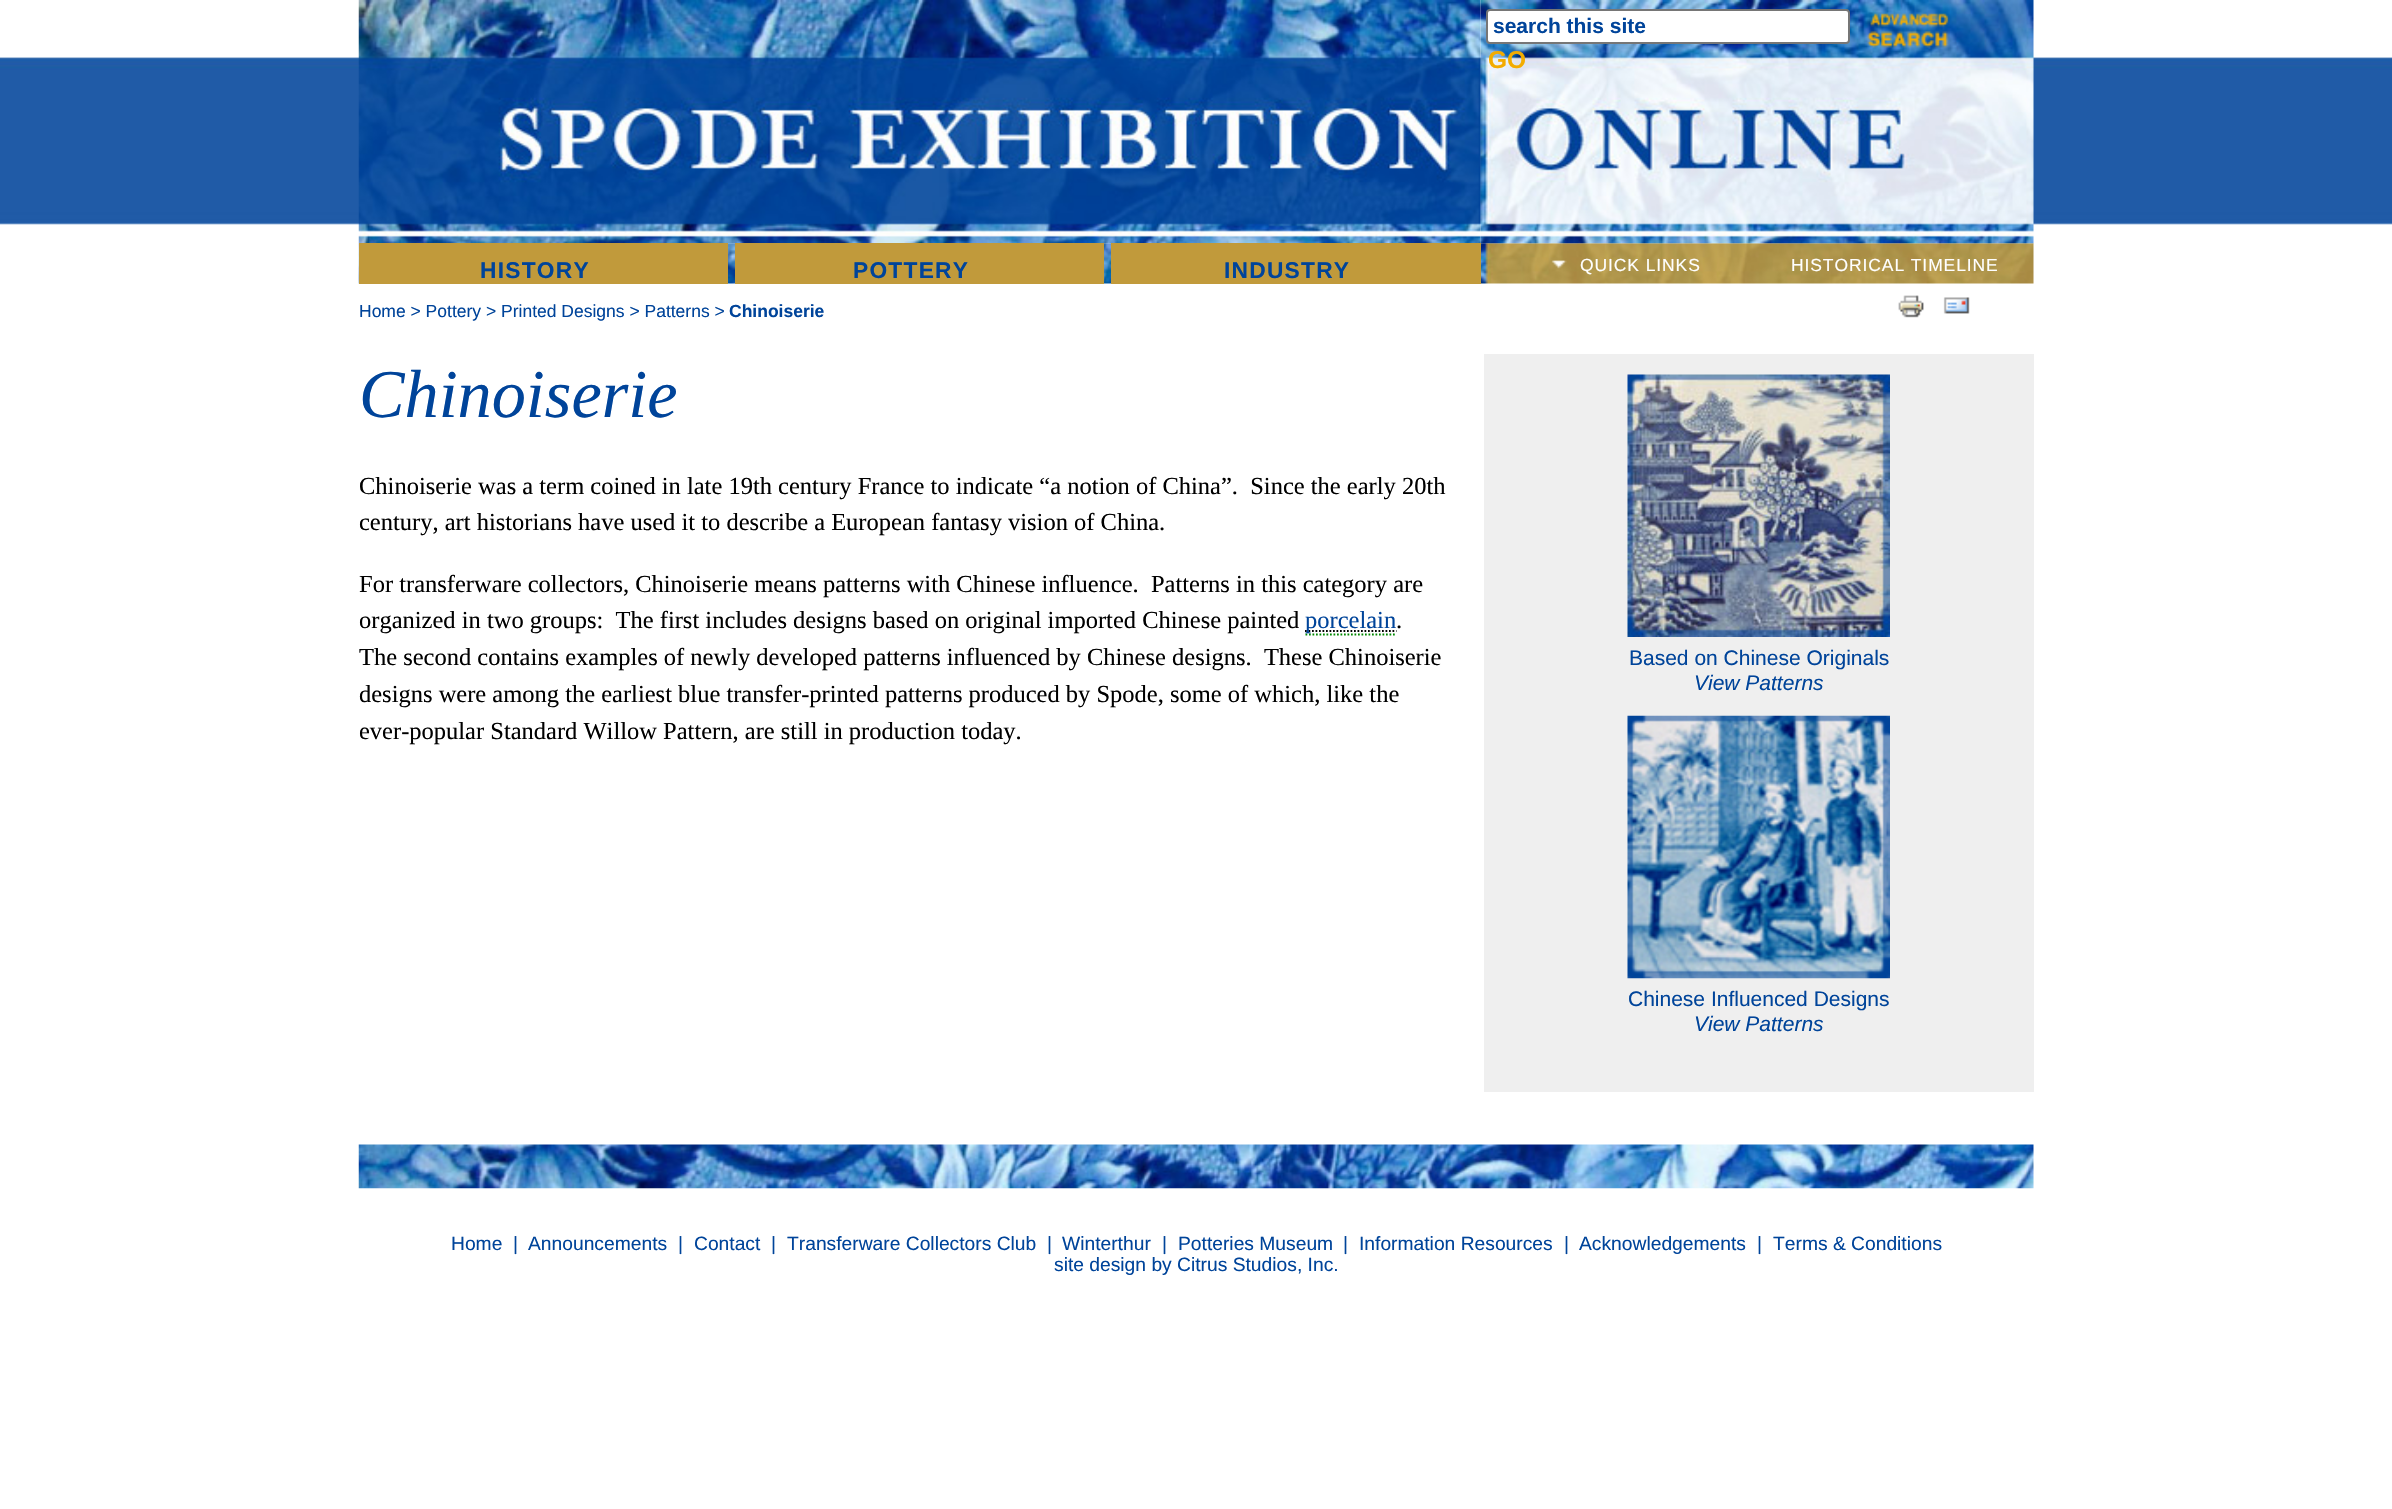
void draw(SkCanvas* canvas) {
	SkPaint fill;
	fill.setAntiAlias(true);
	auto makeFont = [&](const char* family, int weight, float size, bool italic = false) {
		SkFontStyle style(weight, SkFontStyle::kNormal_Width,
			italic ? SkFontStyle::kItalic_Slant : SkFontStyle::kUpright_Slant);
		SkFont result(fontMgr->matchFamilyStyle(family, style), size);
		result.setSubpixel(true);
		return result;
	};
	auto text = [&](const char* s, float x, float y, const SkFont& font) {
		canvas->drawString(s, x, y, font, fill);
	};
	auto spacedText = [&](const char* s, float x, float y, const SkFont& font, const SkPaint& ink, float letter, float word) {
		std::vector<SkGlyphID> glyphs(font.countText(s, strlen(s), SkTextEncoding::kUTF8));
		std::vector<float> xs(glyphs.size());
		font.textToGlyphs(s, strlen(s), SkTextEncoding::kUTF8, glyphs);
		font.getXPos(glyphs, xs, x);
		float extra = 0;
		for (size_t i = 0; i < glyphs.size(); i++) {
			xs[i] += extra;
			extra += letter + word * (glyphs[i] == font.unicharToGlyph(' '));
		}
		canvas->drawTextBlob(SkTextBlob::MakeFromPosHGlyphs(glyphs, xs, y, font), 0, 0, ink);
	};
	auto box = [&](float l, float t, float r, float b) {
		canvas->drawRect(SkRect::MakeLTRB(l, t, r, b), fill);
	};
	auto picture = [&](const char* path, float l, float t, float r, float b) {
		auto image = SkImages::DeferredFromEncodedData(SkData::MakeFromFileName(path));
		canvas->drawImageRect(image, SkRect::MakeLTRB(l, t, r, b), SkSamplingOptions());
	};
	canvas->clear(0xFFFFFFFF);
	picture("image0.png", 0, 57, 2392, 225);
	picture("image4.png", 358, 243, 2034, 284);
	picture("image1.png", 358, 0, 1481, 244);
	picture("image2.png", 1480, 0, 2034, 244);
	fill.setColor(0xFFFFFFFF);
	canvas->drawRoundRect(SkRect::MakeLTRB(1487, 10, 1849, 43), 3, 3, fill);
	fill.setStyle(SkPaint::kStroke_Style);
	fill.setStrokeWidth(2);
	fill.setColor(0xFF767676);
	canvas->drawRoundRect(SkRect::MakeLTRB(1487, 10, 1849, 43), 3, 3, fill);
	picture("image3.png", 1867, 13, 1949, 48);
	fill.setStyle(SkPaint::kFill_Style);
	fill.setColor(0xFFC19A3B);
	box(359, 243, 728, 284);
	box(735, 243, 1104, 284);
	box(1111, 243, 1481, 284);
	picture("image5.png", 1551, 260, 1567, 269);
	picture("image6.png", 1898, 295, 1924, 318);
	picture("image7.png", 1943, 297, 1970, 314);
	fill.setStyle(SkPaint::kStroke_Style);
	fill.setStrokeWidth(1.8f);
	fill.setColor(0xFF008800);
	fill.setPathEffect(SkDashPathEffect::Make({{1.75f, 1.75f}}, 0));
	canvas->drawPath(SkPathBuilder().moveTo(1305.5f, 634.5f).lineTo(1396.5f, 634.5f).detach(), fill);
	fill.setPathEffect(nullptr);
	fill.setColor(0xFF000000);
	fill.setPathEffect(SkDashPathEffect::Make({{1.75f, 1.75f}}, 0));
	canvas->drawPath(SkPathBuilder().moveTo(1305, 631).lineTo(1396.5f, 631).detach(), fill);
	fill.setPathEffect(nullptr);
	fill.setStyle(SkPaint::kFill_Style);
	fill.setColor(0xFFEFEFEF);
	box(1484, 354, 2034, 1092);
	picture("image8.png", 1627, 374, 1890, 637);
	picture("image9.png", 1627, 715, 1890, 979);
	picture("image10.png", 358, 1144, 2034, 1189);
	auto font1 = makeFont("Liberation Sans", 700, 21);
	fill.setColor(0xFF00449A);
	text("search this site", 1493, 33, font1);
	auto font2 = makeFont("Liberation Sans", 700, 24.5f);
	fill.setColor(0xFFF3AC00);
	text("GO", 1488, 68, font2);
	auto font3 = makeFont("Liberation Sans", 700, 22.75f);
	fill.setColor(0xFF00449A);
	spacedText("HISTORY", 480, 278, font3, fill, 1.25f, 0);
	spacedText("POTTERY", 853, 278, font3, fill, 1.25f, 0);
	spacedText("INDUSTRY", 1224, 278, font3, fill, 1.25f, 0);
	auto font4 = makeFont("Liberation Sans", 400, 17.5f);
	fill.setColor(0xFFFFFFFF);
	spacedText("QUICK LINKS", 1580, 271, font4, fill, 0.9f, 0);
	spacedText("HISTORICAL TIMELINE", 1791, 271, font4, fill, 0.9f, 0);
	fill.setColor(0xFF00449A);
	text("Home > Pottery > Printed Designs > Patterns >", 359, 317, font4);
	auto font5 = makeFont("Liberation Sans", 700, 17.5f);
	text("Chinoiserie", 729, 317, font5);
	auto font6 = makeFont("Liberation Serif", 400, 68.25f, true);
	text("Chinoiserie", 359, 417, font6);
	auto font7 = makeFont("Liberation Serif", 400, 24.5f);
	fill.setColor(0xFF000000);
	text("Chinoiserie was a term coined in late 19th century France to indicate “a notion of China”.  Since the early 20th", 359, 494, font7);
	text("century, art historians have used it to describe a European fantasy vision of China.", 359, 530, font7);
	text("For transferware collectors, Chinoiserie means patterns with Chinese influence.  Patterns in this category are", 359, 592, font7);
	text("organized in two groups:  The first includes designs based on original imported Chinese painted", 359, 628, font7);
	fill.setColor(0xFF00449A);
	text("porcelain", 1305, 628, font7);
	fill.setColor(0xFF000000);
	text(".", 1396, 628, font7);
	text("The second contains examples of newly developed patterns influenced by Chinese designs.  These Chinoiserie", 359, 665, font7);
	text("designs were among the earliest blue transfer-printed patterns produced by Spode, some of which, like the", 359, 702, font7);
	text("ever-popular Standard Willow Pattern, are still in production today.", 359, 739, font7);
	auto font8 = makeFont("Liberation Sans", 400, 21);
	fill.setColor(0xFF00449A);
	text("Based on Chinese Originals", 1629, 665, font8);
	auto font9 = makeFont("Liberation Sans", 400, 21, true);
	text("View Patterns", 1694, 690, font9);
	text("Chinese Influenced Designs", 1628, 1006, font8);
	text("View Patterns", 1694, 1031, font9);
	auto font10 = makeFont("Liberation Sans", 400, 19.25f);
	text("Home", 451, 1250, font10);
	text("|", 513, 1250, font10);
	text("Announcements", 528, 1250, font10);
	text("|", 678, 1250, font10);
	text("Contact", 694, 1250, font10);
	text("|", 771, 1250, font10);
	text("Transferware Collectors Club", 787, 1250, font10);
	text("|", 1047, 1250, font10);
	text("Winterthur", 1062, 1250, font10);
	text("|", 1162, 1250, font10);
	text("Potteries Museum", 1178, 1250, font10);
	text("|", 1343, 1250, font10);
	text("Information Resources", 1359, 1250, font10);
	text("|", 1564, 1250, font10);
	text("Acknowledgements", 1579, 1250, font10);
	text("|", 1757, 1250, font10);
	text("Terms & Conditions", 1773, 1250, font10);
	text("site design by Citrus Studios, Inc.", 1054, 1271, font10);
}
